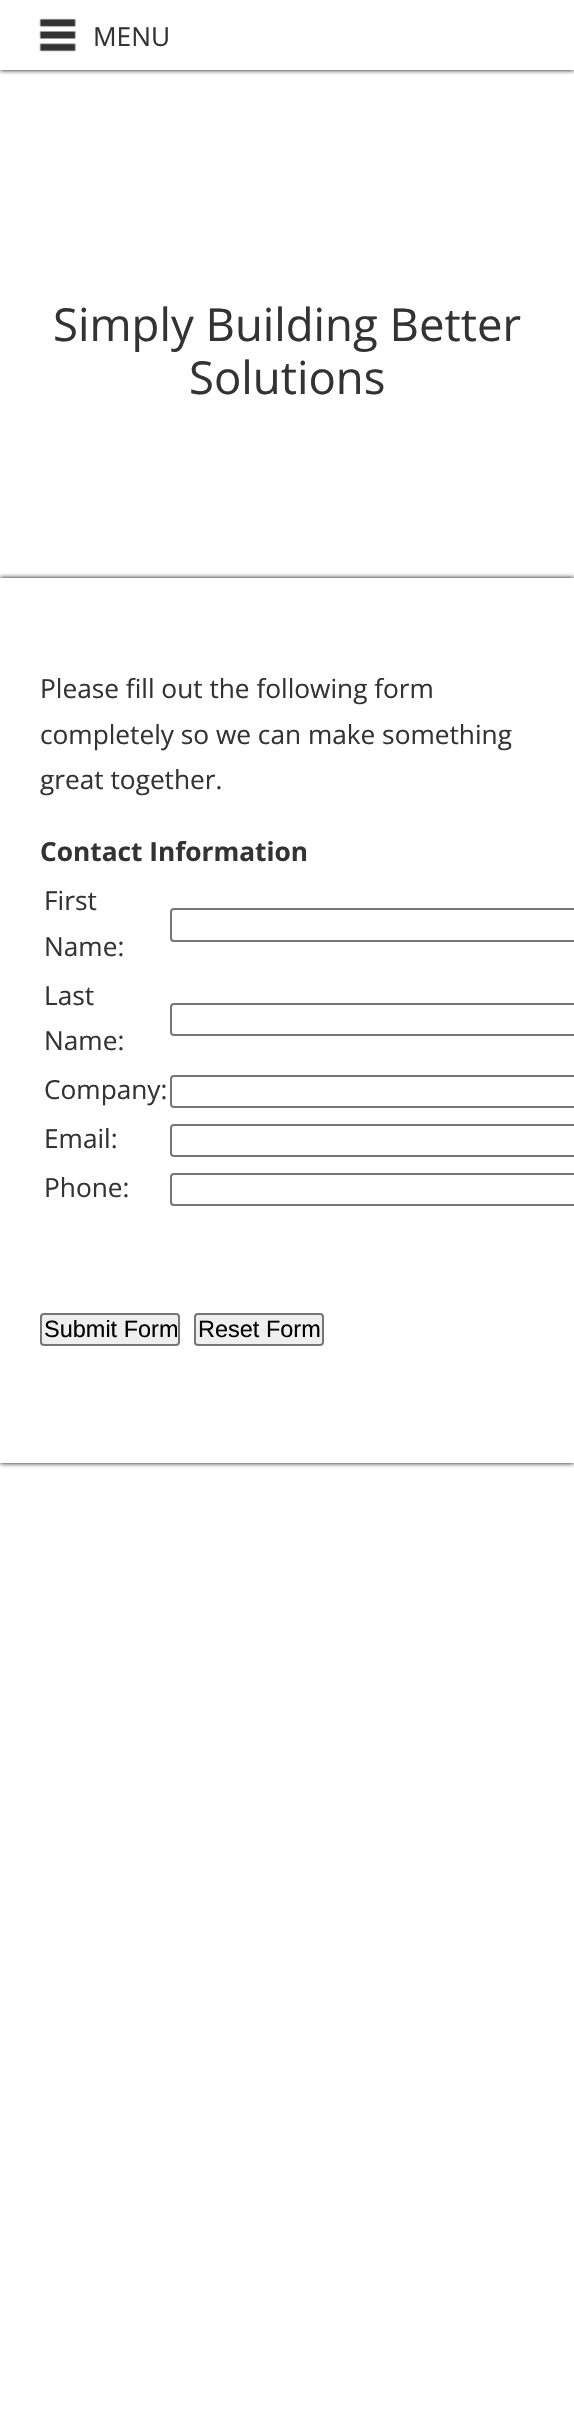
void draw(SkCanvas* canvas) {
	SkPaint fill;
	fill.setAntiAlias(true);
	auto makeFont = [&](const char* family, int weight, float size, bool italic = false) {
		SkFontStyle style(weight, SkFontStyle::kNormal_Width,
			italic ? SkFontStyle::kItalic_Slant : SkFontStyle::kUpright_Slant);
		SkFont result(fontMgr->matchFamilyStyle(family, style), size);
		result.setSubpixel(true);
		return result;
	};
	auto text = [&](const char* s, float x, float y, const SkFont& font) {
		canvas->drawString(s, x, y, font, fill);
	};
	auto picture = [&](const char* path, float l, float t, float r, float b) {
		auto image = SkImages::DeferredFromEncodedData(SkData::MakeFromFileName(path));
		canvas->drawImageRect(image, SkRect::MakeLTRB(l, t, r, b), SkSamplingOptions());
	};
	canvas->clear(0xFFFFFFFF);
	canvas->save();
	canvas->clipRect(SkRect::MakeLTRB(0, 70, 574, 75));
	fill.setColor(0xFF000000);
	fill.setMaskFilter(SkMaskFilter::MakeBlur(kNormal_SkBlurStyle, 2.5f));
	canvas->drawRect(SkRect::MakeLTRB(0, 0, 574, 70), fill);
	fill.setMaskFilter(nullptr);
	canvas->restore();
	picture("image0.png", 39, 18, 76, 52);
	canvas->save();
	canvas->clipPath(SkPathBuilder(SkPathFillType::kEvenOdd).moveTo(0, 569).lineTo(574, 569).lineTo(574, 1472).lineTo(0, 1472).close().moveTo(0, 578).lineTo(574, 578).lineTo(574, 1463).lineTo(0, 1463).close().detach(), true);
	fill.setMaskFilter(SkMaskFilter::MakeBlur(kNormal_SkBlurStyle, 2.5f));
	canvas->drawRect(SkRect::MakeLTRB(0, 578, 574, 1463), fill);
	fill.setMaskFilter(nullptr);
	canvas->restore();
	fill.setStyle(SkPaint::kStroke_Style);
	fill.setStrokeWidth(2);
	fill.setColor(0xFF767676);
	canvas->drawRoundRect(SkRect::MakeLTRB(171, 909, 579, 941), 3, 3, fill);
	canvas->drawRoundRect(SkRect::MakeLTRB(171, 1004, 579, 1035), 3, 3, fill);
	canvas->drawRoundRect(SkRect::MakeLTRB(171, 1076, 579, 1107), 3, 3, fill);
	canvas->drawRoundRect(SkRect::MakeLTRB(171, 1125, 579, 1156), 3, 3, fill);
	canvas->drawRoundRect(SkRect::MakeLTRB(171, 1174, 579, 1205), 3, 3, fill);
	fill.setStyle(SkPaint::kFill_Style);
	fill.setColor(0xFFEFEFEF);
	canvas->drawRoundRect(SkRect::MakeLTRB(41, 1314, 179, 1345), 3, 3, fill);
	fill.setStyle(SkPaint::kStroke_Style);
	fill.setColor(0xFF767676);
	canvas->drawRoundRect(SkRect::MakeLTRB(41, 1314, 179, 1345), 3, 3, fill);
	fill.setStyle(SkPaint::kFill_Style);
	fill.setColor(0xFFEFEFEF);
	canvas->drawRoundRect(SkRect::MakeLTRB(195, 1314, 323, 1345), 3, 3, fill);
	fill.setStyle(SkPaint::kStroke_Style);
	fill.setColor(0xFF767676);
	canvas->drawRoundRect(SkRect::MakeLTRB(195, 1314, 323, 1345), 3, 3, fill);
	auto font1 = makeFont("Open Sans", 400, 26.25f);
	fill.setStyle(SkPaint::kFill_Style);
	fill.setColor(0xFF333333);
	text("MENU", 93, 46, font1);
	auto font2 = makeFont("Open Sans", 400, 45.5f);
	text("Simply Building Better", 53, 341, font2);
	text("Solutions", 189, 394, font2);
	text("Please fill out the following form", 40, 698, font1);
	text("completely so we can make something", 40, 744, font1);
	text("great together.", 40, 789, font1);
	auto font3 = makeFont("Open Sans", 700, 26.25f);
	text("Contact Information", 40, 861, font3);
	text("First", 44, 910, font1);
	text("Name:", 44, 956, font1);
	text("Last", 44, 1005, font1);
	text("Name:", 44, 1050, font1);
	text("Company:", 44, 1099, font1);
	text("Email:", 44, 1148, font1);
	text("Phone:", 44, 1197, font1);
	auto font4 = makeFont("Liberation Sans", 400, 23.5f);
	fill.setColor(0xFF000000);
	text("Submit Form", 44, 1337, font4);
	text("Reset Form", 198, 1337, font4);
}
